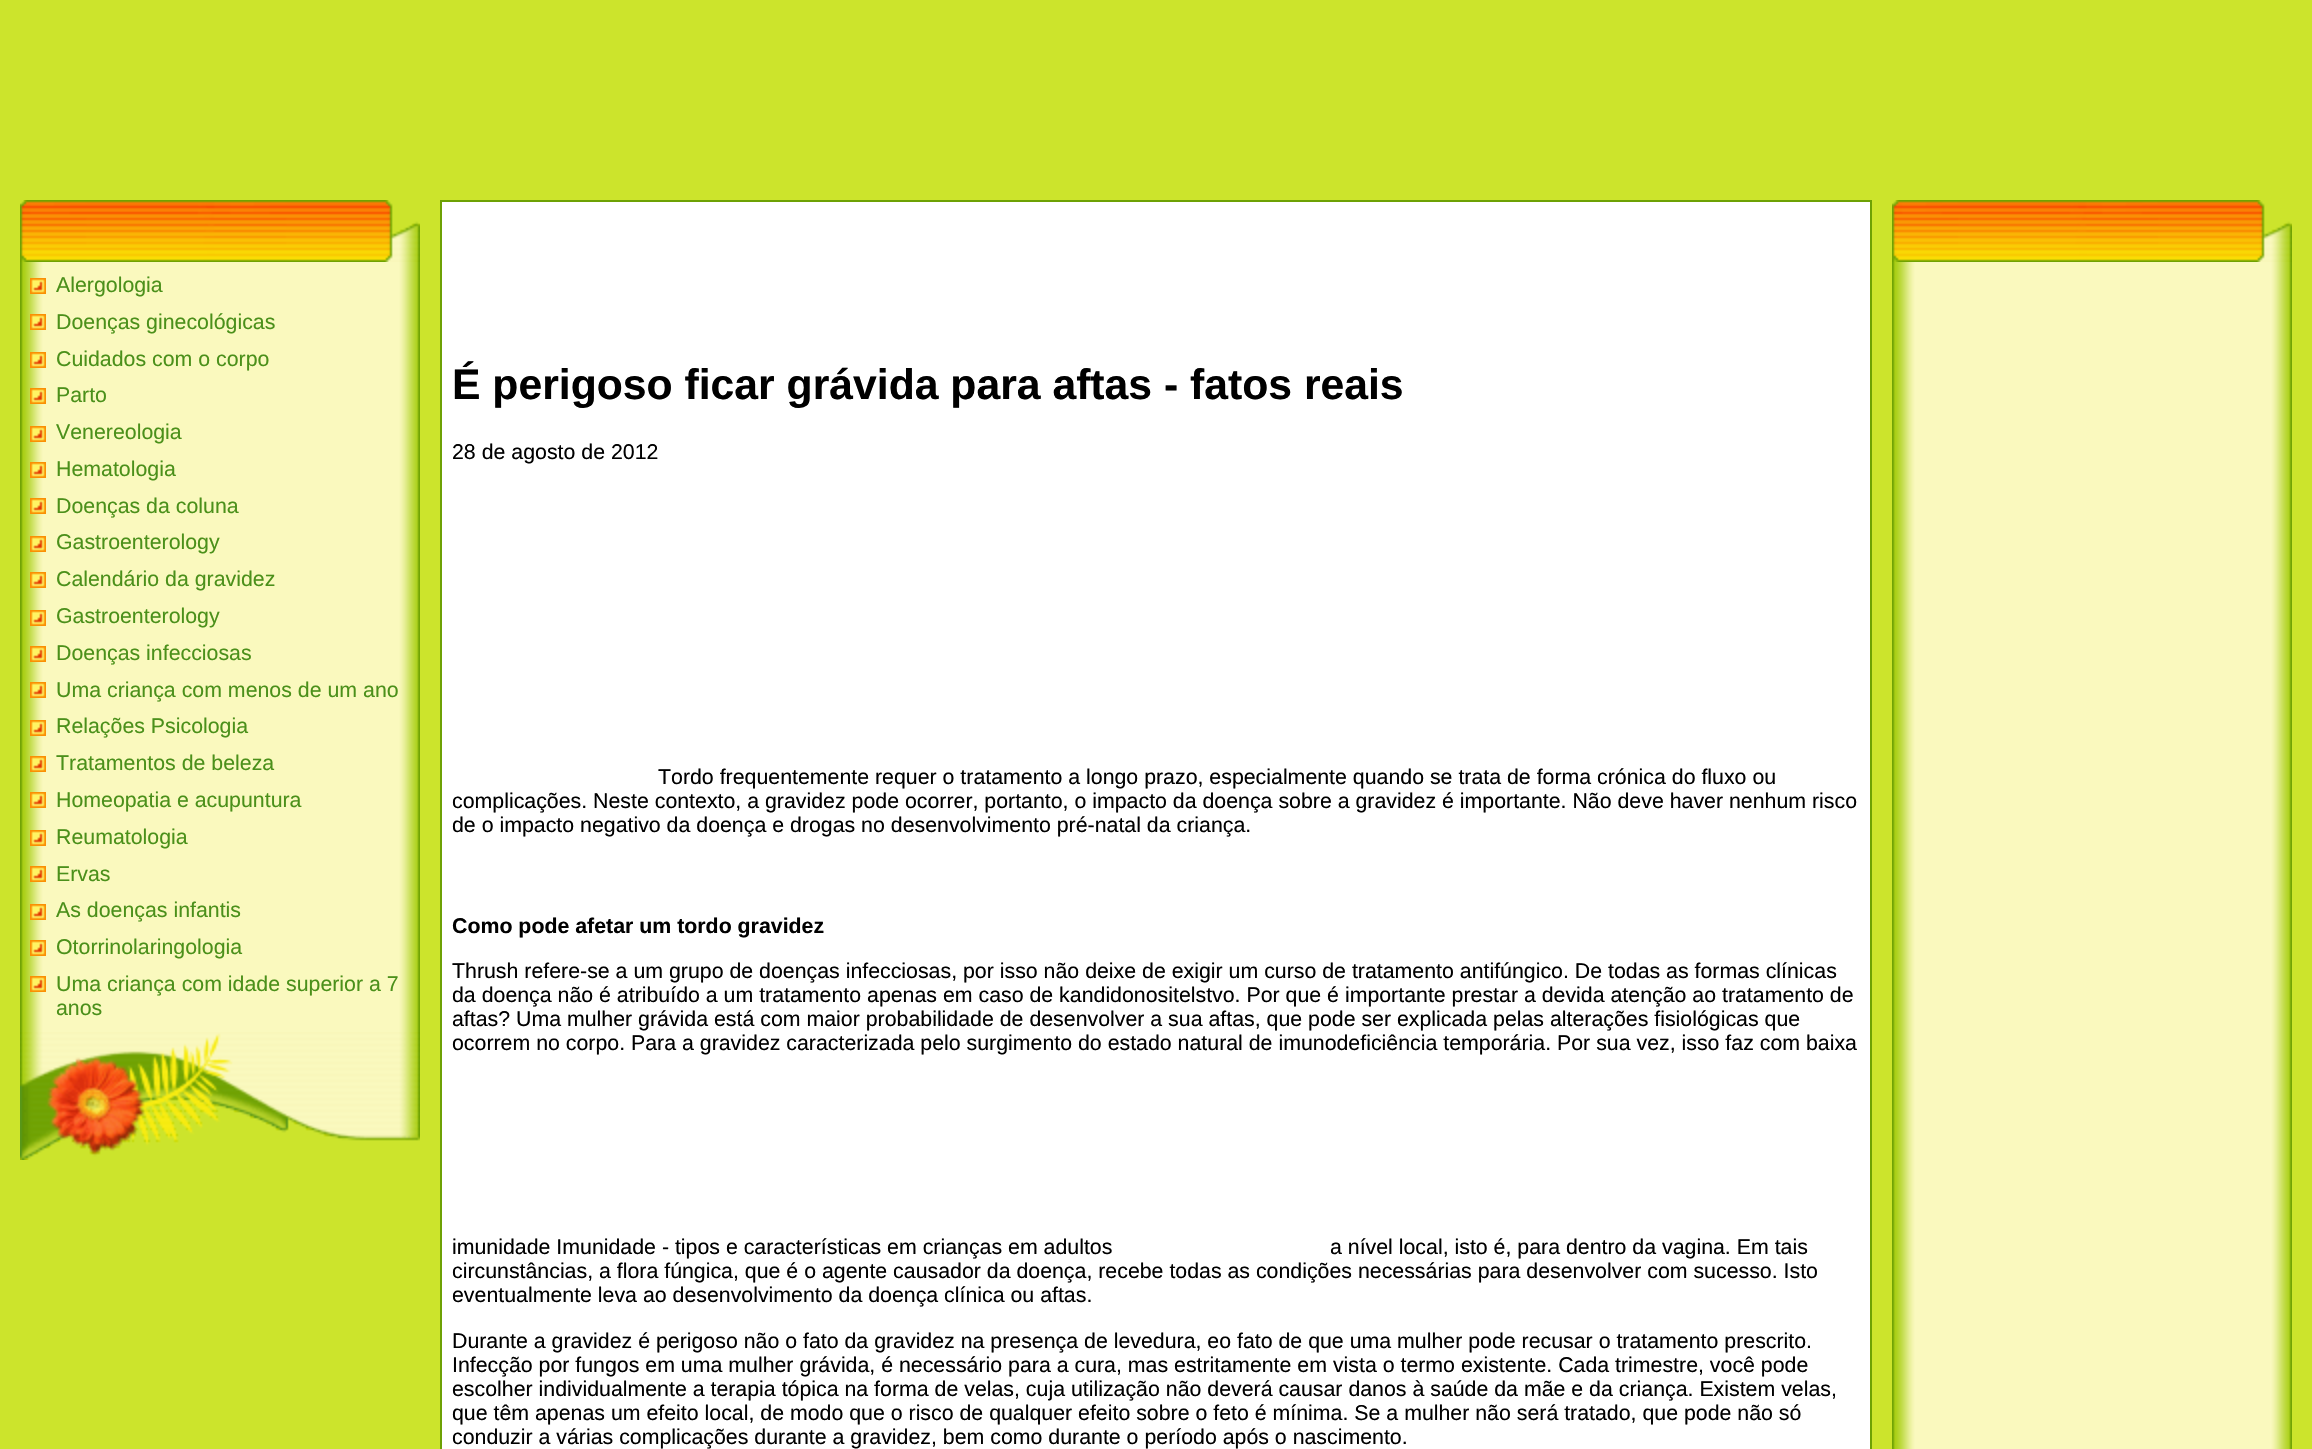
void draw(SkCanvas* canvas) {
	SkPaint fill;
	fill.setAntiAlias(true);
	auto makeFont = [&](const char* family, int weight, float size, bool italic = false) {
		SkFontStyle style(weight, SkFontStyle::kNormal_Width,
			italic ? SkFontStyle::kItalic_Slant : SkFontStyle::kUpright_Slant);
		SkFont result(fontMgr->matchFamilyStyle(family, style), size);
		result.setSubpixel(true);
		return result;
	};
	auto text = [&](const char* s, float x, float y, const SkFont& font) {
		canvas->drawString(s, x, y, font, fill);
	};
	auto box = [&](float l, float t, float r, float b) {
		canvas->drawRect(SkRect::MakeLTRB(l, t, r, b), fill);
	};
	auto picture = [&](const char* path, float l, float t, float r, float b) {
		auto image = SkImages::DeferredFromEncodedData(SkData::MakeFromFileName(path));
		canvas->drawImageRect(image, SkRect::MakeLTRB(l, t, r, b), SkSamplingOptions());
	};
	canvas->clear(0xFFCCE42C);
	picture("image0.png", 20, 200, 420, 262);
	picture("image1.png", 20, 262, 420, 1032);
	picture("image2.png", 30, 278, 46, 294);
	picture("image2.png", 30, 314, 46, 330);
	picture("image2.png", 30, 352, 46, 368);
	picture("image2.png", 30, 388, 46, 404);
	picture("image2.png", 30, 426, 46, 442);
	picture("image2.png", 30, 462, 46, 478);
	picture("image2.png", 30, 498, 46, 514);
	picture("image2.png", 30, 536, 46, 552);
	picture("image2.png", 30, 572, 46, 588);
	picture("image2.png", 30, 610, 46, 626);
	picture("image2.png", 30, 646, 46, 662);
	picture("image2.png", 30, 682, 46, 698);
	picture("image2.png", 30, 720, 46, 736);
	picture("image2.png", 30, 756, 46, 772);
	picture("image2.png", 30, 792, 46, 808);
	picture("image2.png", 30, 830, 46, 846);
	picture("image2.png", 30, 866, 46, 882);
	picture("image2.png", 30, 904, 46, 920);
	picture("image2.png", 30, 940, 46, 956);
	picture("image2.png", 30, 976, 46, 992);
	picture("image3.png", 20, 1032, 420, 1160);
	fill.setStyle(SkPaint::kStroke_Style);
	fill.setStrokeWidth(2);
	fill.setColor(0xFF6DA104);
	canvas->drawRect(SkRect::MakeLTRB(441, 201, 1871, 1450), fill);
	fill.setStyle(SkPaint::kFill_Style);
	fill.setColor(0xFFFFFFFF);
	box(442, 202, 1870, 1449);
	picture("image0.png", 1892, 200, 2292, 262);
	picture("image4.png", 1892, 262, 2292, 1449);
	auto font1 = makeFont("Liberation Sans", 400, 21.33f);
	fill.setColor(0xFF4B901A);
	text("Alergologia", 56, 292, font1);
	text("Doenças ginecológicas", 56, 329, font1);
	text("Cuidados com o corpo", 56, 366, font1);
	text("Parto", 56, 402, font1);
	text("Venereologia", 56, 439, font1);
	text("Hematologia", 56, 476, font1);
	text("Doenças da coluna", 56, 513, font1);
	text("Gastroenterology", 56, 549, font1);
	text("Calendário da gravidez", 56, 586, font1);
	text("Gastroenterology", 56, 623, font1);
	text("Doenças infecciosas", 56, 660, font1);
	text("Uma criança com menos de um ano", 56, 697, font1);
	text("Relações Psicologia", 56, 733, font1);
	text("Tratamentos de beleza", 56, 770, font1);
	text("Homeopatia e acupuntura", 56, 807, font1);
	text("Reumatologia", 56, 844, font1);
	text("Ervas", 56, 881, font1);
	text("As doenças infantis", 56, 917, font1);
	text("Otorrinolaringologia", 56, 954, font1);
	text("Uma criança com idade superior a 7", 56, 991, font1);
	text("anos", 56, 1015, font1);
	auto font2 = makeFont("Liberation Sans", 700, 42.7f);
	fill.setColor(0xFF000000);
	text("É perigoso ficar grávida para aftas - fatos reais", 452, 399, font2);
	text("28 de agosto de 2012", 452, 459, font1);
	text("Tordo frequentemente requer o tratamento a longo prazo, especialmente quando se trata de forma crónica do fluxo ou", 658, 784, font1);
	text("complicações. Neste contexto, a gravidez pode ocorrer, portanto, o impacto da doença sobre a gravidez é importante. Não deve haver nenhum risco", 452, 808, font1);
	text("de o impacto negativo da doença e drogas no desenvolvimento pré-natal da criança.", 452, 832, font1);
	auto font3 = makeFont("Liberation Sans", 700, 21.33f);
	text("Como pode afetar um tordo gravidez", 452, 933, font3);
	text("Thrush refere-se a um grupo de doenças infecciosas, por isso não deixe de exigir um curso de tratamento antifúngico. De todas as formas clínicas", 452, 978, font1);
	text("da doença não é atribuído a um tratamento apenas em caso de kandidonositelstvo. Por que é importante prestar a devida atenção ao tratamento de", 452, 1002, font1);
	text("aftas? Uma mulher grávida está com maior probabilidade de desenvolver a sua aftas, que pode ser explicada pelas alterações fisiológicas que", 452, 1026, font1);
	text("ocorrem no corpo. Para a gravidez caracterizada pelo surgimento do estado natural de imunodeficiência temporária. Por sua vez, isso faz com baixa", 452, 1050, font1);
	text("imunidade Imunidade - tipos e características em crianças em adultos", 452, 1254, font1);
	text("a nível local, isto é, para dentro da vagina. Em tais", 1330, 1254, font1);
	text("circunstâncias, a flora fúngica, que é o agente causador da doença, recebe todas as condições necessárias para desenvolver com sucesso. Isto", 452, 1278, font1);
	text("eventualmente leva ao desenvolvimento da doença clínica ou aftas.", 452, 1302, font1);
	text("Durante a gravidez é perigoso não o fato da gravidez na presença de levedura, eo fato de que uma mulher pode recusar o tratamento prescrito.", 452, 1348, font1);
	text("Infecção por fungos em uma mulher grávida, é necessário para a cura, mas estritamente em vista o termo existente. Cada trimestre, você pode", 452, 1372, font1);
	text("escolher individualmente a terapia tópica na forma de velas, cuja utilização não deverá causar danos à saúde da mãe e da criança. Existem velas,", 452, 1396, font1);
	text("que têm apenas um efeito local, de modo que o risco de qualquer efeito sobre o feto é mínima. Se a mulher não será tratado, que pode não só", 452, 1420, font1);
	text("conduzir a várias complicações durante a gravidez, bem como durante o período após o nascimento.", 452, 1444, font1);
}
